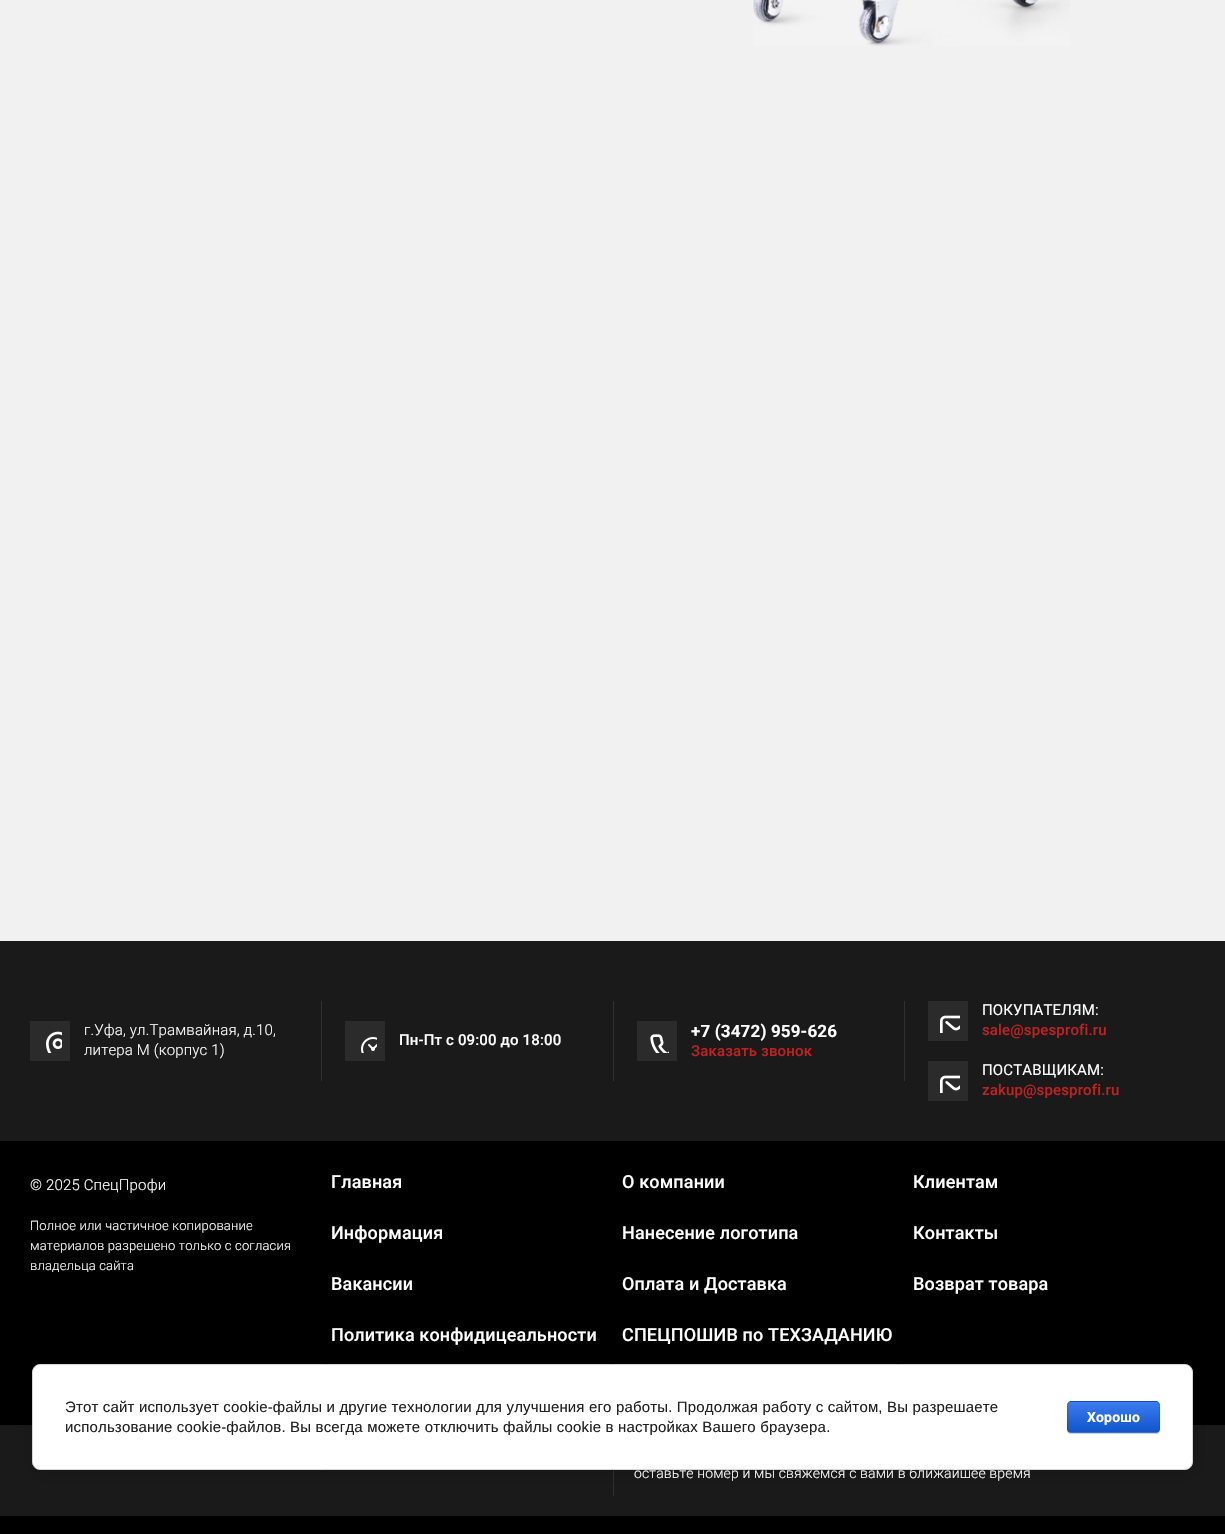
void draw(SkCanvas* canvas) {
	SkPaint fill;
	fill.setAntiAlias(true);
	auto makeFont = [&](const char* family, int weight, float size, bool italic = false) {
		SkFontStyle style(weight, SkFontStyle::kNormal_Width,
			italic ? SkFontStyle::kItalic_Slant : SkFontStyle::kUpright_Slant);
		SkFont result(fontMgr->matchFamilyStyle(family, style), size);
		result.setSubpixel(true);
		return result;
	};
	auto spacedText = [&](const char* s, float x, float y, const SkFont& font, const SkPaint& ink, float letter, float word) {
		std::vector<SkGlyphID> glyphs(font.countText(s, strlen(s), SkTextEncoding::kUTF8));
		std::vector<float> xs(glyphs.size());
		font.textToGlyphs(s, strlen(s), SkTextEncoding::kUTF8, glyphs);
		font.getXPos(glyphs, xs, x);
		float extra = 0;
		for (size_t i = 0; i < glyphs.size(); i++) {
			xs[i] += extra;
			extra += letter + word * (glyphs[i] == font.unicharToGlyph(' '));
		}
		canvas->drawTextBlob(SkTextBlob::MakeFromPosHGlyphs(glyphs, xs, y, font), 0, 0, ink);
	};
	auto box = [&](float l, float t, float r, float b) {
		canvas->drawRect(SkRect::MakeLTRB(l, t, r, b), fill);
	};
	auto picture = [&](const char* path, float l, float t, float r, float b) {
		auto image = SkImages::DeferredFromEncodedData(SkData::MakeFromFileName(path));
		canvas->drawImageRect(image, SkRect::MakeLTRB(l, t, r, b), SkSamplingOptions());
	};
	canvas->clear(0xFFF1F1F1);
	picture("image0.png", 753, 0, 1070, 46);
	fill.setColor(0xFF000000);
	box(0, 1141, 1225, 1534);
	fill.setColor(0xFF1A1A1A);
	box(0, 941, 1225, 1141);
	fill.setColor(0xFF2B2B2B);
	box(30, 1021, 70, 1061);
	picture("image1.png", 46, 1031, 62, 1053);
	fill.setColor(0xFF313131);
	box(321, 1001, 322, 1081);
	fill.setColor(0xFF2B2B2B);
	box(345, 1021, 385, 1061);
	picture("image2.png", 361, 1037, 377, 1053);
	fill.setColor(0xFF313131);
	box(613, 1001, 614, 1081);
	fill.setColor(0xFF2B2B2B);
	box(637, 1021, 677, 1061);
	picture("image3.png", 650, 1034, 669, 1053);
	fill.setColor(0xFF313131);
	box(904, 1001, 905, 1081);
	fill.setColor(0xFF2B2B2B);
	box(928, 1001, 968, 1041);
	picture("image4.png", 940, 1015, 960, 1033);
	box(928, 1061, 968, 1101);
	picture("image4.png", 940, 1075, 960, 1093);
	fill.setColor(0xFF1A1A1A);
	box(0, 1425, 1225, 1516);
	fill.setColor(0xFF313131);
	box(613, 1470, 614, 1496);
	fill.setColor(0x24000000);
	fill.setMaskFilter(SkMaskFilter::MakeBlur(kNormal_SkBlurStyle, 9));
	canvas->drawRoundRect(SkRect::MakeLTRB(34, 1366, 1195, 1472), 8, 8, fill);
	fill.setMaskFilter(nullptr);
	fill.setColor(0xFFFFFFFF);
	canvas->drawRoundRect(SkRect::MakeLTRB(32.5f, 1364.5f, 1192.5f, 1469.5f), 7.5f, 7.5f, fill);
	fill.setStyle(SkPaint::kStroke_Style);
	fill.setStrokeWidth(1);
	fill.setColor(0xFFD6D6D6);
	canvas->drawRoundRect(SkRect::MakeLTRB(32.5f, 1364.5f, 1192.5f, 1469.5f), 7.5f, 7.5f, fill);
	fill.setStyle(SkPaint::kFill_Style);
	fill.setColor(0x33000000);
	fill.setMaskFilter(SkMaskFilter::MakeBlur(kNormal_SkBlurStyle, 0.5f));
	canvas->drawRoundRect(SkRect::MakeLTRB(1067, 1402, 1160, 1434), 4, 4, fill);
	fill.setMaskFilter(nullptr);
	canvas->save();
	canvas->clipPath(SkPathBuilder().moveTo(1071, 1401).lineTo(1156, 1401).cubicTo(1158, 1401, 1160, 1403, 1160, 1405).lineTo(1160, 1429).cubicTo(1160, 1431, 1158, 1433, 1156, 1433).lineTo(1071, 1433).cubicTo(1069, 1433, 1067, 1431, 1067, 1429).lineTo(1067, 1405).cubicTo(1067, 1403, 1069, 1401, 1071, 1401).close().detach(), true);
	{
		const SkColor colors[] = {0xFF3B7CEF, 0xFF1155CC};
		const float stops[] = {0, 1};
		const SkPoint ends[] = {{1114, 1372}, {1114, 1402}};
		fill.setShader(SkGradientShader::MakeLinear(ends, colors, stops, 2, SkTileMode::kClamp));
		fill.setAlpha(255);
	}
	box(1067, 1401, 1160, 1402);
	{
		const SkColor colors[] = {0xFF3B7CEF, 0xFF1155CC};
		const float stops[] = {0, 1};
		const SkPoint ends[] = {{1114, 1402}, {1114, 1432}};
		fill.setShader(SkGradientShader::MakeLinear(ends, colors, stops, 2, SkTileMode::kClamp));
		fill.setAlpha(255);
	}
	box(1067, 1402, 1160, 1432);
	{
		const SkColor colors[] = {0xFF3B7CEF, 0xFF1155CC};
		const float stops[] = {0, 1};
		const SkPoint ends[] = {{1114, 1432}, {1114, 1462}};
		fill.setShader(SkGradientShader::MakeLinear(ends, colors, stops, 2, SkTileMode::kClamp));
		fill.setAlpha(255);
	}
	box(1067, 1432, 1160, 1433);
	canvas->restore();
	fill.setStyle(SkPaint::kStroke_Style);
	fill.setShader(nullptr);
	fill.setColor(0x1A000000);
	canvas->drawRoundRect(SkRect::MakeLTRB(1067.5f, 1401.5f, 1159.5f, 1432.5f), 3.5f, 3.5f, fill);
	auto font1 = makeFont("Roboto", 300, 15);
	fill.setStyle(SkPaint::kFill_Style);
	fill.setColor(0xFFFFFFFF);
	spacedText("г.Уфа, ул.Трамвайная, д.10,", 84, 1035, font1, fill, 0.15f, 0);
	spacedText("литера М (корпус 1)", 84, 1055, font1, fill, 0.15f, 0);
	auto font2 = makeFont("Roboto", 500, 15);
	spacedText("Пн-Пт с 09:00 до 18:00", 399, 1045, font2, fill, 0.15f, 0);
	auto font3 = makeFont("Roboto", 700, 17);
	spacedText("+7 (3472) 959-626", 691, 1037, font3, fill, 0.15f, 0);
	fill.setColor(0xFFBE2222);
	spacedText("Заказать звонок", 691, 1056, font2, fill, 0.15f, 0);
	auto font4 = makeFont("Roboto", 400, 15);
	fill.setColor(0xFFFFFFFF);
	spacedText("ПОКУПАТЕЛЯМ:", 982, 1015, font4, fill, 0.15f, 0);
	fill.setColor(0xFFBE2222);
	spacedText("sale@spesprofi.ru", 982, 1035, font2, fill, 0.15f, 0);
	fill.setColor(0xFFFFFFFF);
	spacedText("ПОСТАВЩИКАМ:", 982, 1075, font4, fill, 0.15f, 0);
	fill.setColor(0xFFBE2222);
	spacedText("zakup@spesprofi.ru", 982, 1095, font2, fill, 0.15f, 0);
	fill.setColor(0xFFFFFFFF);
	spacedText("© 2025 СпецПрофи", 30, 1190, font1, fill, 0.16f, 0);
	auto font5 = makeFont("Roboto", 300, 13);
	spacedText("Полное или частичное копирование", 30, 1230, font5, fill, 0.16f, 0);
	spacedText("материалов разрешено только с согласия", 30, 1250, font5, fill, 0.16f, 0);
	spacedText("владельца сайта", 30, 1270, font5, fill, 0.16f, 0);
	auto font6 = makeFont("Roboto", 500, 18);
	spacedText("Главная", 331, 1188, font6, fill, 0.16f, 0);
	spacedText("О компании", 622, 1188, font6, fill, 0.16f, 0);
	spacedText("Клиентам", 913, 1188, font6, fill, 0.16f, 0);
	spacedText("Информация", 331, 1239, font6, fill, 0.16f, 0);
	spacedText("Нанесение логотипа", 622, 1239, font6, fill, 0.16f, 0);
	spacedText("Контакты", 913, 1239, font6, fill, 0.16f, 0);
	spacedText("Вакансии", 331, 1290, font6, fill, 0.16f, 0);
	spacedText("Оплата и Доставка", 622, 1290, font6, fill, 0.16f, 0);
	spacedText("Возврат товара", 913, 1290, font6, fill, 0.16f, 0);
	spacedText("Политика конфидицеальности", 331, 1341, font6, fill, 0.16f, 0);
	spacedText("СПЕЦПОШИВ по ТЕХЗАДАНИЮ", 622, 1341, font6, fill, 0.16f, 0);
	auto font7 = makeFont("Roboto", 300, 14);
	spacedText("оставьте номер и мы свяжемся с вами в ближайшее время", 634, 1478, font7, fill, 0.15f, 0);
	auto font8 = makeFont("Liberation Sans", 400, 15);
	fill.setColor(0xFF212121);
	spacedText("Этот сайт использует cookie-файлы и другие технологии для улучшения его работы. Продолжая работу с сайтом, Вы разрешаете", 65, 1412, font8, fill, 0.16f, 0);
	spacedText("использование cookie-файлов. Вы всегда можете отключить файлы cookie в настройках Вашего браузера.", 65, 1432, font8, fill, 0.16f, 0);
	auto font9 = makeFont("Roboto", 700, 14);
	fill.setColor(0xFFFFFFFF);
	spacedText("Хорошо", 1087, 1422, font9, fill, 0.16f, 0);
}
